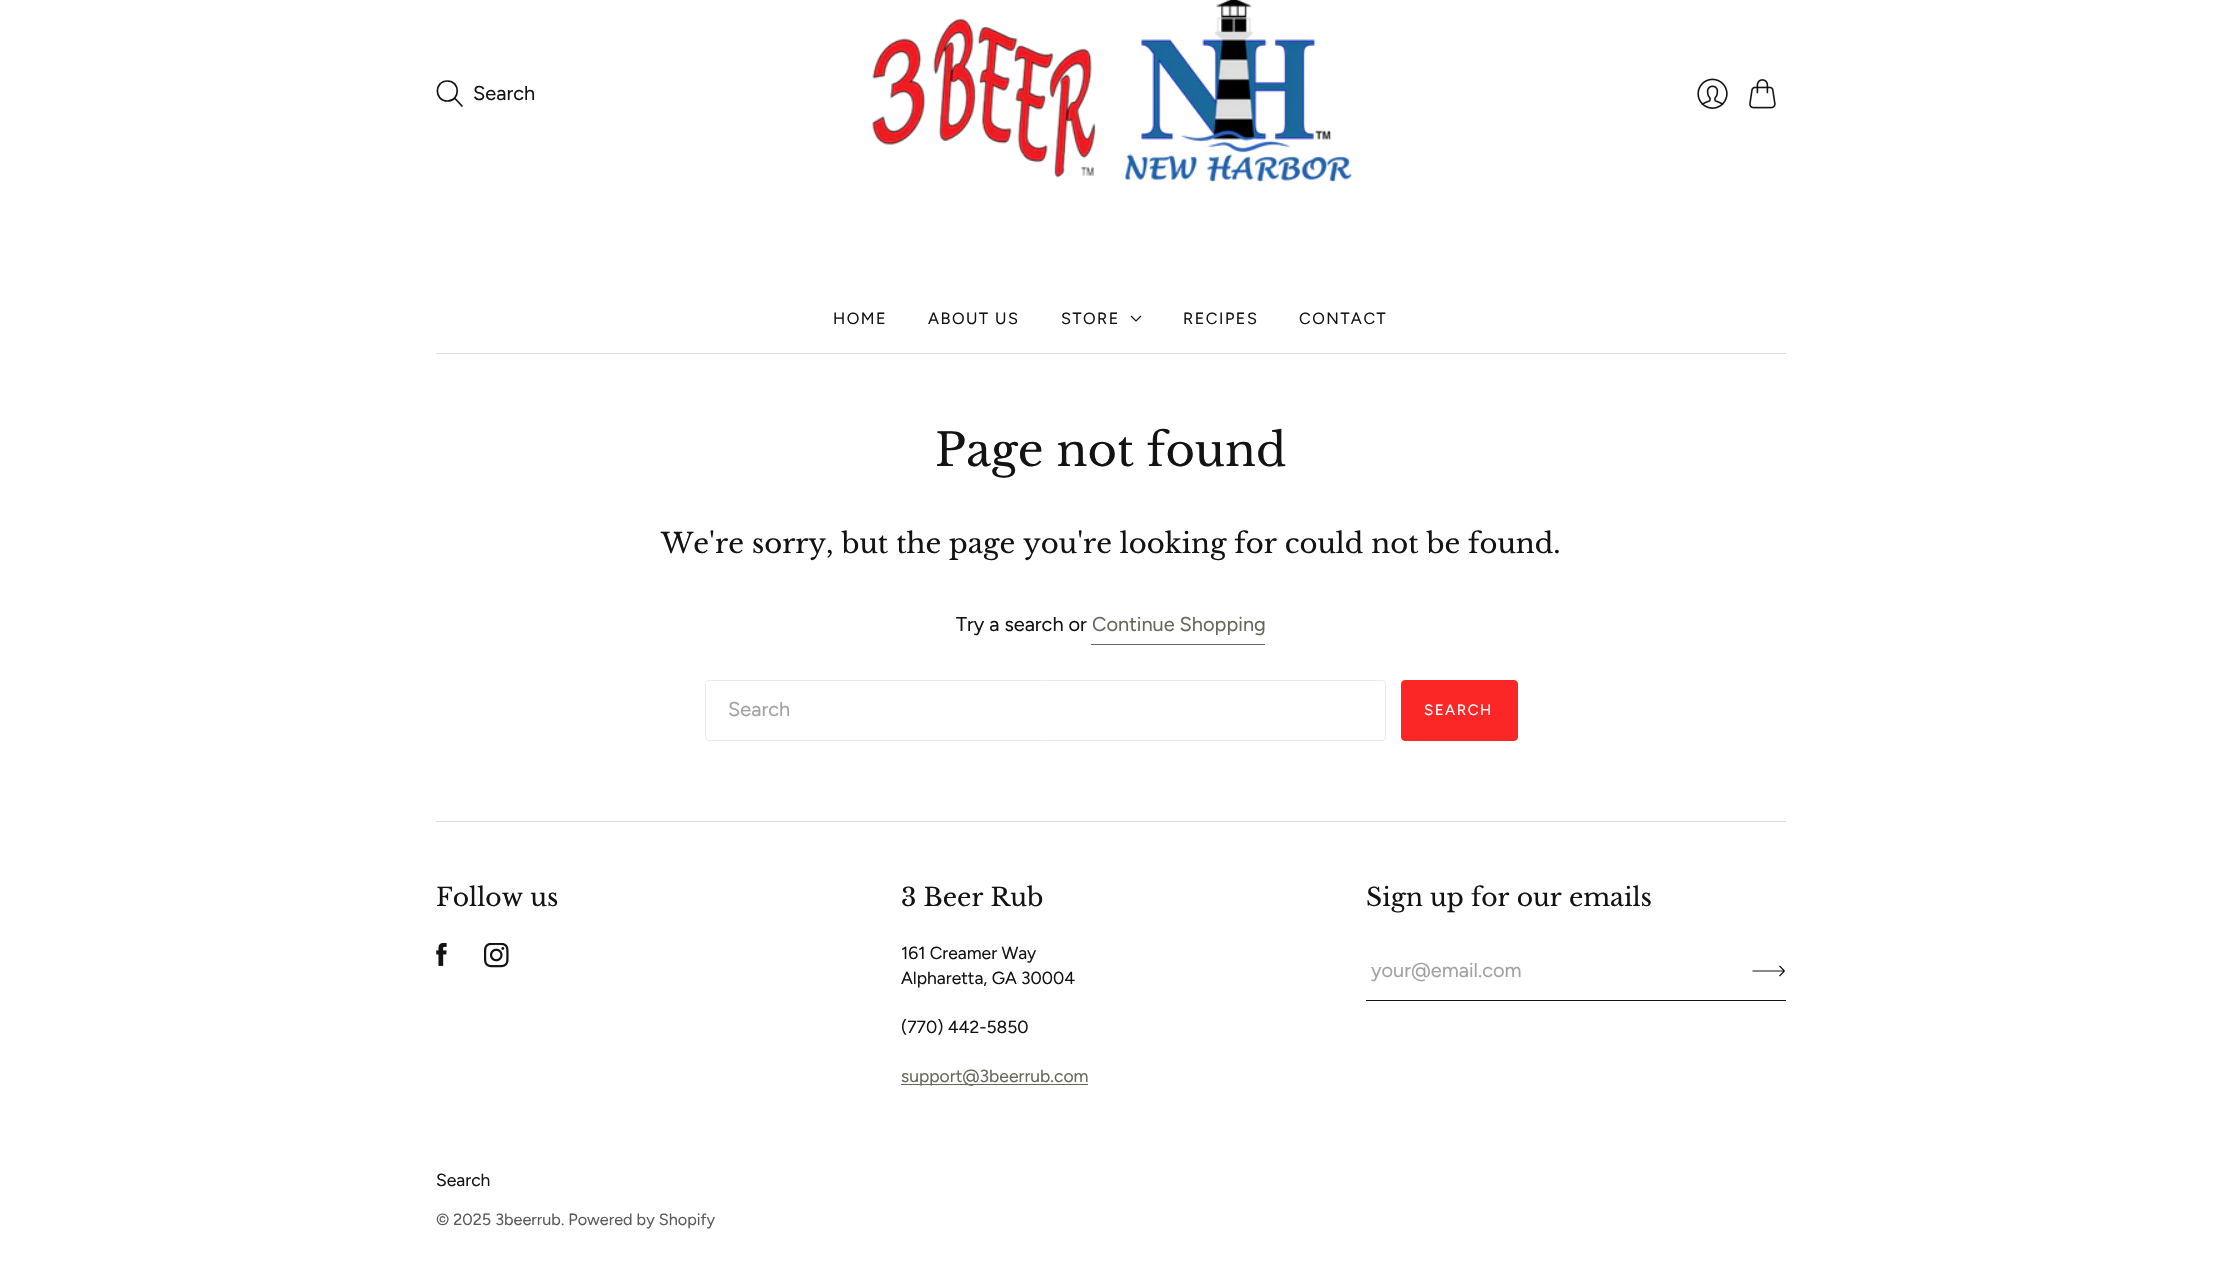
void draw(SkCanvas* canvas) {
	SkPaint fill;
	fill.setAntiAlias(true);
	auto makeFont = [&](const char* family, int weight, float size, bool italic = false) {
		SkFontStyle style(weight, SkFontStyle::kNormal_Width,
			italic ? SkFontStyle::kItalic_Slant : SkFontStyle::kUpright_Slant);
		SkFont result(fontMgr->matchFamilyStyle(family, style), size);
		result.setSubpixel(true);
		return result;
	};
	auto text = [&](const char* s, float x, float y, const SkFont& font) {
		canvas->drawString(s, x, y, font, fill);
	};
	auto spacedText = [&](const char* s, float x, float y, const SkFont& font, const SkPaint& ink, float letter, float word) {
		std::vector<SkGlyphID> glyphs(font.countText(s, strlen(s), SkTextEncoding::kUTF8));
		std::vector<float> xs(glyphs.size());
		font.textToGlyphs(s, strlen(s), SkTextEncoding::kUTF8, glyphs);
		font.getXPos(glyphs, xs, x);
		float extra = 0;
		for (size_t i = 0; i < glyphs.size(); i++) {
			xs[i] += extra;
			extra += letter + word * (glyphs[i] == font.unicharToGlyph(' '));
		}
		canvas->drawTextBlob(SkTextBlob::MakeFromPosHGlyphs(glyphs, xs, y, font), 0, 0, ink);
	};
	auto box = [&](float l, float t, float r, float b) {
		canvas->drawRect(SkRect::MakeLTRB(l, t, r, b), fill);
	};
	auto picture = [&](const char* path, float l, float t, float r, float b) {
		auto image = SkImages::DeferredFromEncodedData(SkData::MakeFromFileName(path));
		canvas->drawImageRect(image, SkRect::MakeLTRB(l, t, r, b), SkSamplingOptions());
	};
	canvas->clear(0xFFFFFFFF);
	fill.setStyle(SkPaint::kStroke_Style);
	fill.setStrokeWidth(1.7f);
	fill.setStrokeCap(SkPaint::kRound_Cap);
	fill.setStrokeJoin(SkPaint::kRound_Join);
	fill.setColor(0xFF131313);
	canvas->drawPath(SkPathBuilder().moveTo(447.5f, 101).cubicTo(460.5f, 101, 460.5f, 81, 447.5f, 81).cubicTo(434, 81, 434, 101, 447.5f, 101).close().moveTo(462, 106).lineTo(455, 98.5f).detach(), fill);
	picture("image0.png", 1697, 78, 1728, 109);
	picture("image1.png", 1749, 79, 1776, 109);
	fill.setStyle(SkPaint::kFill_Style);
	fill.setColor(0xFFDCDCDC);
	box(436, 353, 1786, 354);
	picture("image2.png", 872, 0, 1352, 183);
	fill.setStyle(SkPaint::kStroke_Style);
	fill.setStrokeWidth(1.2f);
	fill.setStrokeCap(SkPaint::kButt_Cap);
	fill.setStrokeJoin(SkPaint::kMiter_Join);
	fill.setColor(0xFF131313);
	canvas->drawPath(SkPathBuilder().moveTo(1131, 316).lineTo(1136, 321).lineTo(1141, 316).detach(), fill);
	fill.setStyle(SkPaint::kFill_Style);
	fill.setColor(0xFF636859);
	box(1091, 644, 1265, 645);
	fill.setStyle(SkPaint::kStroke_Style);
	fill.setStrokeWidth(1);
	fill.setColor(0xFFEAEAEA);
	canvas->drawRoundRect(SkRect::MakeLTRB(705.5f, 680.5f, 1385.5f, 740.5f), 3.5f, 3.5f, fill);
	fill.setStyle(SkPaint::kFill_Style);
	fill.setColor(0xFFFB2727);
	canvas->drawRoundRect(SkRect::MakeLTRB(1401.5f, 680.5f, 1517.5f, 740.5f), 3.5f, 3.5f, fill);
	fill.setStyle(SkPaint::kStroke_Style);
	canvas->drawRoundRect(SkRect::MakeLTRB(1401.5f, 680.5f, 1517.5f, 740.5f), 3.5f, 3.5f, fill);
	fill.setStyle(SkPaint::kFill_Style);
	fill.setColor(0xFFDCDCDC);
	box(436, 821, 1786, 822);
	picture("image3.png", 436, 943, 447, 966);
	picture("image4.png", 484, 943, 509, 968);
	fill.setColor(0xFF636859);
	box(901, 1084, 1088, 1085);
	fill.setColor(0xFF131313);
	box(1366, 1000, 1786, 1001);
	fill.setStyle(SkPaint::kStroke_Style);
	fill.setStrokeWidth(1.2f);
	canvas->drawPath(SkPathBuilder().moveTo(1752.5f, 971).lineTo(1784.5f, 971).moveTo(1784.5f, 971).lineTo(1779.5f, 966).moveTo(1784.5f, 971).lineTo(1779.5f, 976).detach(), fill);
	auto font1 = makeFont("Figtree", 400, 20);
	fill.setStyle(SkPaint::kFill_Style);
	text("Search", 473, 100, font1);
	auto font2 = makeFont("Figtree", 400, 16.25f);
	spacedText("HOME", 833, 324, font2, fill, 1.5f, 0);
	spacedText("ABOUT US", 928, 324, font2, fill, 1.5f, 0);
	spacedText("STORE", 1061, 324, font2, fill, 1.5f, 0);
	spacedText("RECIPES", 1183, 324, font2, fill, 1.5f, 0);
	spacedText("CONTACT", 1299, 324, font2, fill, 1.5f, 0);
	auto font3 = makeFont("Libre Baskerville", 400, 45);
	text("Page not found", 935, 466, font3);
	auto font4 = makeFont("Libre Baskerville", 400, 27.5f);
	text("We're sorry, but the page you're looking for could not be found.", 661, 553, font4);
	text("Try a search or", 956, 631, font1);
	fill.setColor(0xFF636859);
	text("Continue Shopping", 1092, 631, font1);
	fill.setColor(0xFFA1A1A1);
	text("Search", 728, 716, font1);
	auto font5 = makeFont("Figtree", 400, 15);
	fill.setColor(0xFFFFFFFF);
	spacedText("SEARCH", 1424, 715, font5, fill, 1.5f, 0);
	auto font6 = makeFont("Libre Baskerville", 400, 25);
	fill.setColor(0xFF131313);
	text("Follow us", 436, 906, font6);
	text("3 Beer Rub", 901, 906, font6);
	auto font7 = makeFont("Figtree", 400, 17.5f);
	text("161 Creamer Way", 901, 959, font7);
	text("Alpharetta, GA 30004", 901, 984, font7);
	text("(770) 442-5850", 901, 1033, font7);
	fill.setColor(0xFF636859);
	text("support@3beerrub.com", 901, 1082, font7);
	fill.setColor(0xFF131313);
	text("Sign up for our emails", 1366, 906, font6);
	fill.setColor(0xFFA1A1A1);
	text("your@email.com", 1371, 977, font1);
	fill.setColor(0xFF131313);
	text("Search", 436, 1186, font7);
	fill.setColor(0xFF5A5A5A);
	text("© 2025 3beerrub. Powered by Shopify", 436, 1225, font2);
}
